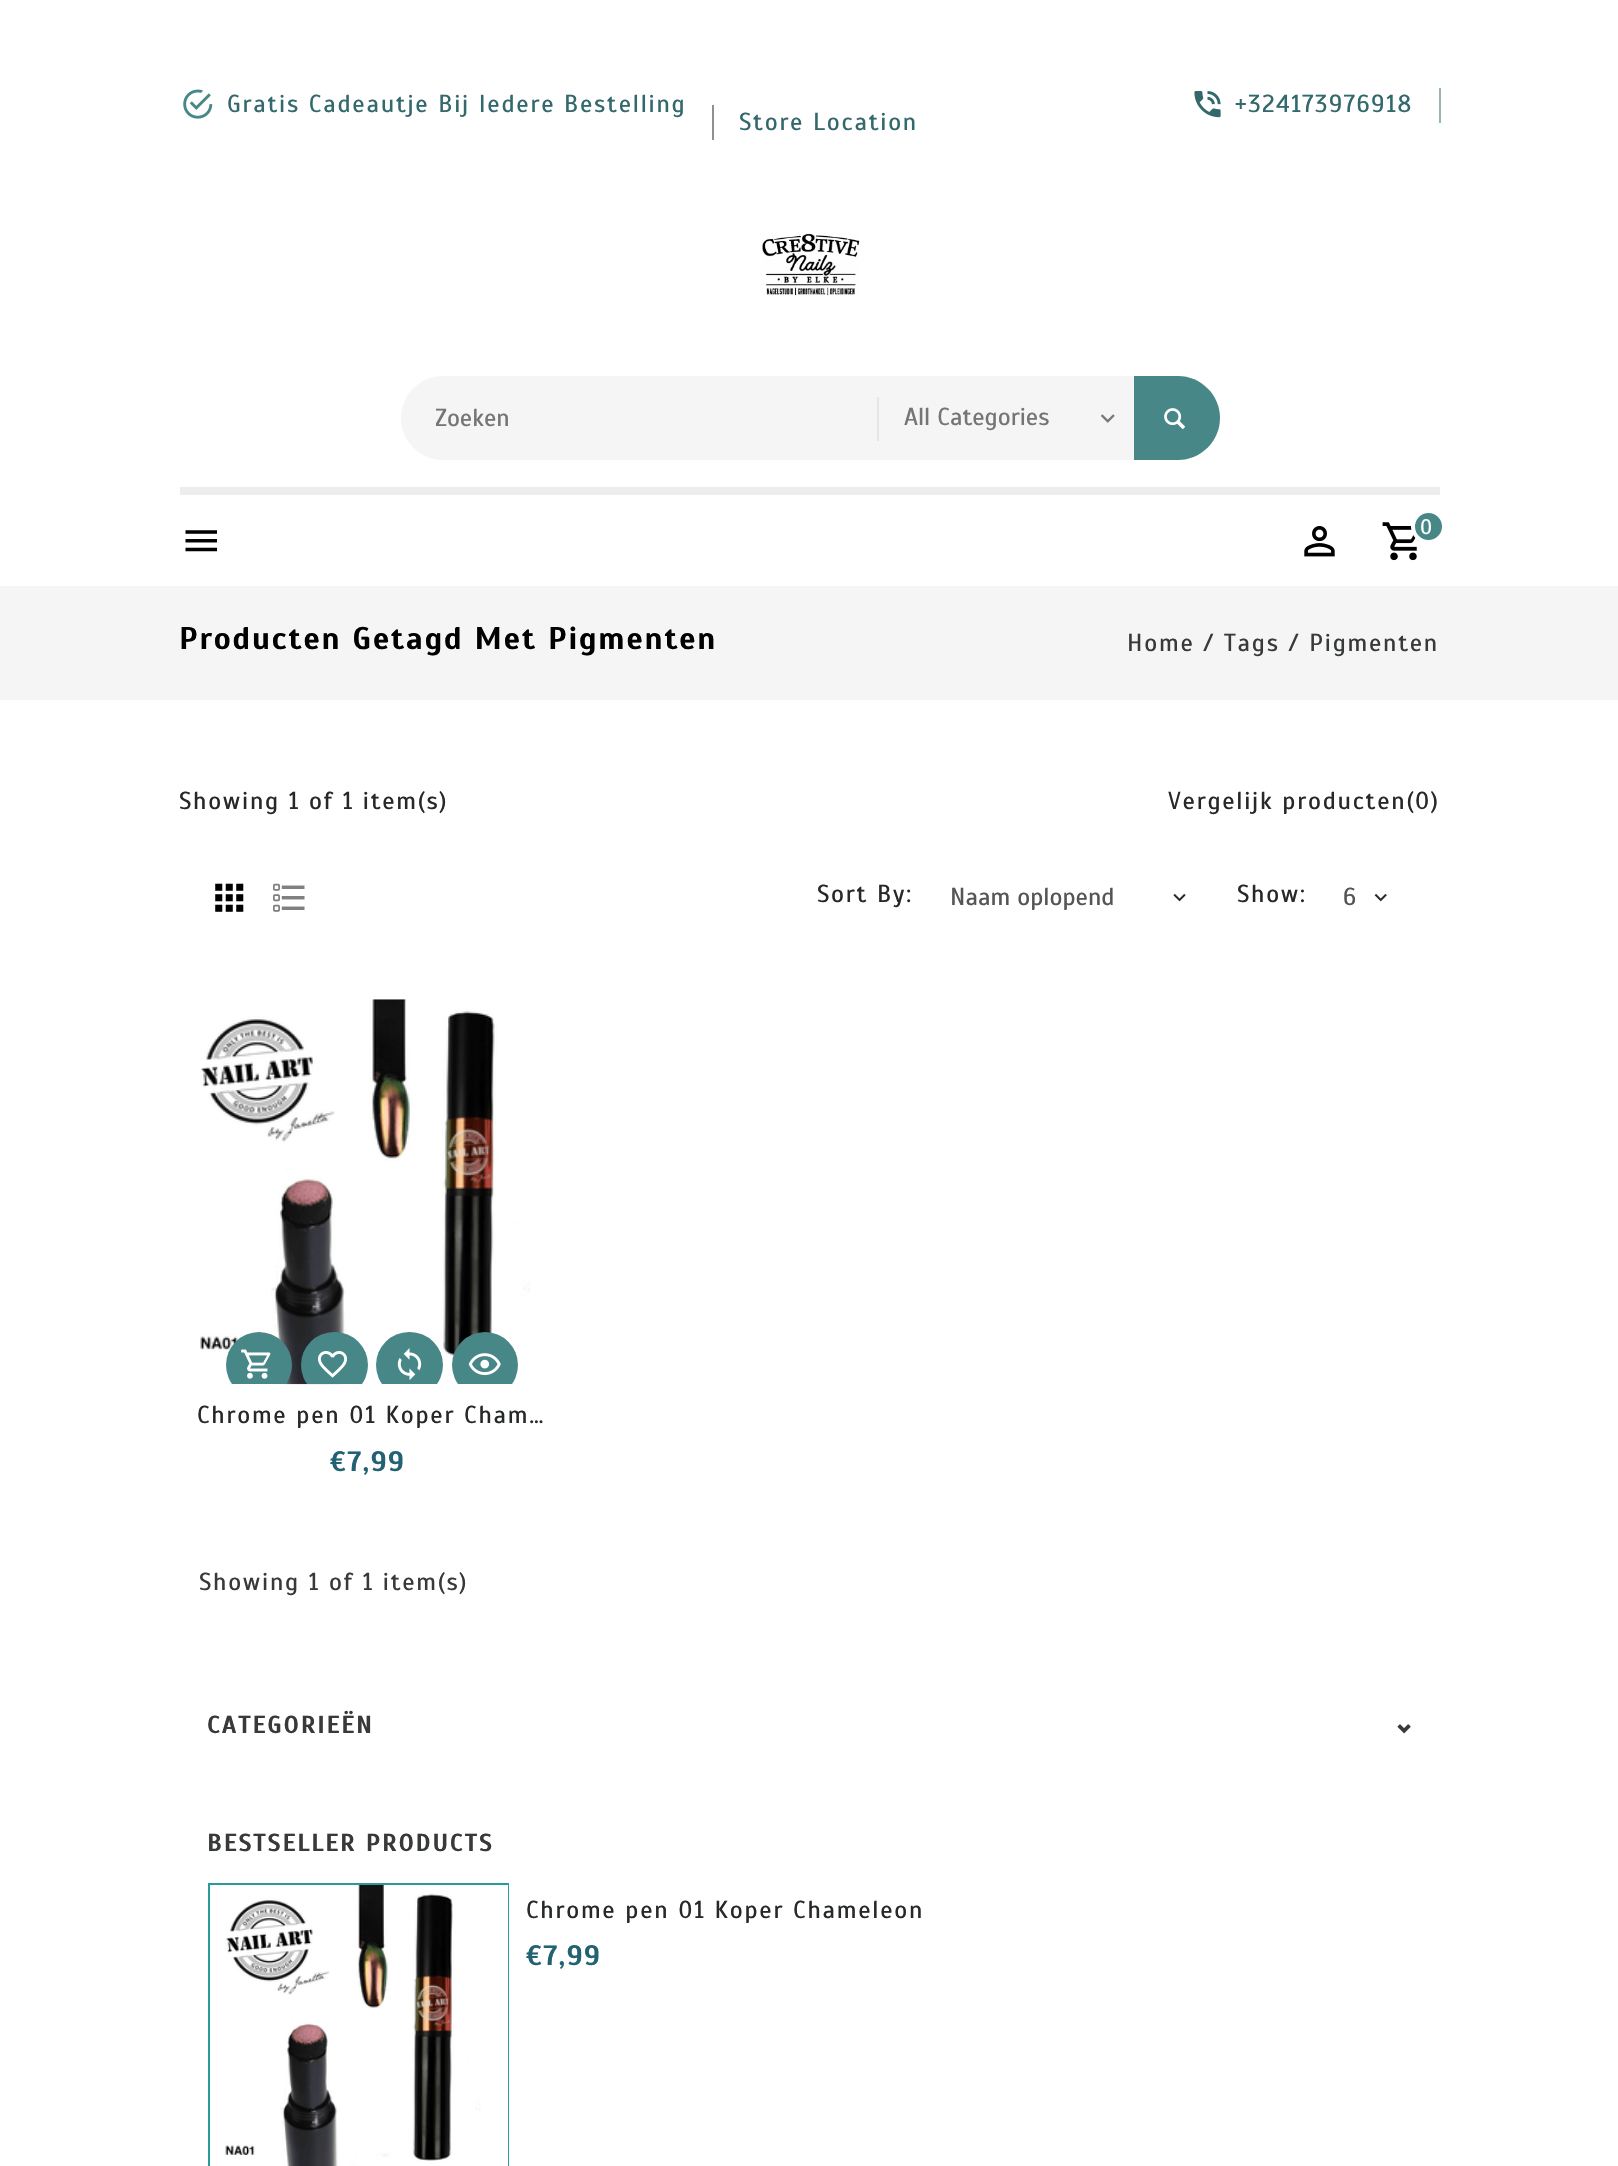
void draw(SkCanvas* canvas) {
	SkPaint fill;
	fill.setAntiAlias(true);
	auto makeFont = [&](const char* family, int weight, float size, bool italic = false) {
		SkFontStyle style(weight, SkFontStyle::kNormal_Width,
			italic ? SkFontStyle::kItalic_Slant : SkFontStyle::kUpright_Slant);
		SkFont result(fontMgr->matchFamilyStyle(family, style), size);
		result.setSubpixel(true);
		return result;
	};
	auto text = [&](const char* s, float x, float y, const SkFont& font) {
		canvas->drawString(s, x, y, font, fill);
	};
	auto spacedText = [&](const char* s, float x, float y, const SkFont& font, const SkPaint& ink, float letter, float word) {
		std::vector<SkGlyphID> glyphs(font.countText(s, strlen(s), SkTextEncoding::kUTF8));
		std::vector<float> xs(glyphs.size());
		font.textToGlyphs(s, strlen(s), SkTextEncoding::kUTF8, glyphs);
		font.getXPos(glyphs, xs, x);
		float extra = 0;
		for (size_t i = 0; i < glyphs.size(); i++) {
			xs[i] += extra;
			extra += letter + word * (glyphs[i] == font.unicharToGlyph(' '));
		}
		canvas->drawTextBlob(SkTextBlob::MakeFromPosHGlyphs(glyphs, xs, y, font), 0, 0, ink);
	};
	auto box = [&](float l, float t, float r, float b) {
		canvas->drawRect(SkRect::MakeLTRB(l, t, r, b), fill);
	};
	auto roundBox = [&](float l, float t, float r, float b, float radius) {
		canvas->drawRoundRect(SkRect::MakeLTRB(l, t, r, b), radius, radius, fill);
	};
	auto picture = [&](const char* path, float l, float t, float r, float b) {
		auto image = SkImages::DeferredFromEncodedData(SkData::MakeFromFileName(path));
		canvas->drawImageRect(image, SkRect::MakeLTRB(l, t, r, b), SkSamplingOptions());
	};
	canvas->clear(0xFFFFFFFF);
	picture("image0.png", 183, 89, 213, 119);
	fill.setColor(0xFF909090);
	box(712, 105, 714, 140);
	picture("image1.png", 1194, 91, 1221, 118);
	fill.setColor(0xFF99B4B5);
	box(1439, 88, 1441, 123);
	fill.setColor(0xFFEDEDED);
	box(180, 487, 1440, 495);
	picture("image2.png", 762, 233, 860, 296);
	fill.setColor(0xFFF5F5F5);
	canvas->drawPath(SkPathBuilder().moveTo(443, 376).lineTo(877, 376).lineTo(877, 460).lineTo(443, 460).cubicTo(420, 460, 401, 441, 401, 418).cubicTo(401, 395, 420, 376, 443, 376).close().detach(), fill);
	box(877, 376, 1134, 460);
	fill.setColor(0xFFE5E5E5);
	box(877, 397, 879, 441);
	picture("image3.png", 1100, 414, 1115, 423);
	fill.setColor(0xFF488787);
	canvas->drawPath(SkPathBuilder().moveTo(1134, 376).lineTo(1178, 376).cubicTo(1201, 376, 1220, 395, 1220, 418).cubicTo(1220, 441, 1201, 460, 1178, 460).lineTo(1134, 460).close().detach(), fill);
	picture("image4.png", 1164, 408, 1186, 430);
	picture("image5.png", 185, 530, 217, 552);
	picture("image6.png", 1304, 526, 1335, 557);
	picture("image7.png", 1382, 522, 1417, 561);
	canvas->drawCircle(1428.5f, 526.5f, 15.5f, fill);
	fill.setStyle(SkPaint::kStroke_Style);
	fill.setStrokeWidth(4);
	fill.setColor(0xFFFFFFFF);
	canvas->drawCircle(1428.5f, 526.5f, 15.5f, fill);
	fill.setStyle(SkPaint::kFill_Style);
	fill.setColor(0xFFF5F5F5);
	box(0, 586, 1618, 700);
	picture("image8.png", 215, 883, 244, 912);
	picture("image9.png", 273, 883, 305, 912);
	picture("image10.png", 1173, 893, 1186, 902);
	picture("image11.png", 1374, 893, 1387, 902);
	picture("image12.png", 200, 999, 530, 1385);
	canvas->save();
	canvas->clipRect(SkRect::MakeLTRB(180, 999, 565, 1384));
	fill.setColor(0xFF488787);
	canvas->drawCircle(259, 1365, 33, fill);
	canvas->restore();
	picture("image13.png", 241, 1349, 271, 1379);
	canvas->save();
	canvas->clipRect(SkRect::MakeLTRB(180, 999, 565, 1384));
	roundBox(301, 1332, 368, 1398, 33);
	canvas->restore();
	picture("image14.png", 318, 1351, 347, 1378);
	canvas->save();
	canvas->clipRect(SkRect::MakeLTRB(180, 999, 565, 1384));
	roundBox(376, 1332, 443, 1398, 33);
	canvas->restore();
	picture("image15.png", 397, 1348, 422, 1380);
	canvas->save();
	canvas->clipRect(SkRect::MakeLTRB(180, 999, 565, 1384));
	canvas->drawCircle(485, 1365, 33, fill);
	canvas->restore();
	picture("image16.png", 468, 1353, 501, 1376);
	picture("image17.png", 1397, 1724, 1411, 1734);
	fill.setStyle(SkPaint::kStroke_Style);
	fill.setStrokeWidth(2);
	fill.setColor(0xFF289C9C);
	canvas->drawRect(SkRect::MakeLTRB(209, 1884, 508, 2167), fill);
	picture("image18.png", 225, 1885, 508, 2166);
	auto font1 = makeFont("Scada", 400, 24.5f);
	fill.setStyle(SkPaint::kFill_Style);
	fill.setColor(0xFF33696C);
	spacedText("Gratis Cadeautje Bij Iedere Bestelling", 227, 112, font1, fill, 1.75f, 0);
	spacedText("Store Location", 739, 130, font1, fill, 1.75f, 0);
	spacedText("+324173976918", 1235, 112, font1, fill, 1.75f, 0);
	canvas->save();
	canvas->clipRect(SkRect::MakeLTRB(436, 404, 842, 434));
	fill.setColor(0xFF757575);
	text("Zoeken", 435, 426, font1);
	canvas->restore();
	text("All Categories", 904, 425, font1);
	auto font2 = makeFont("Scada", 400, 21);
	fill.setColor(0xFFFFFFFF);
	spacedText("0", 1420, 534, font2, fill, 1.75f, 0);
	auto font3 = makeFont("Scada", 700, 31.5f);
	fill.setColor(0xFF000000);
	spacedText("Producten Getagd Met Pigmenten", 179, 649, font3, fill, 1.75f, 0);
	fill.setColor(0xFF383A3A);
	spacedText("Home / Tags / Pigmenten", 1127, 651, font1, fill, 1.75f, 0);
	fill.setColor(0xFF272929);
	spacedText("Showing 1 of 1 item(s)", 179, 809, font1, fill, 1.75f, 0);
	spacedText("Vergelijk producten(0)", 1168, 809, font1, fill, 1.75f, 0);
	spacedText("Sort By:", 817, 902, font1, fill, 1.75f, 0);
	fill.setColor(0xFF555555);
	text("Naam oplopend", 950, 905, font1);
	fill.setColor(0xFF272929);
	spacedText("Show:", 1237, 902, font1, fill, 1.75f, 0);
	fill.setColor(0xFF555555);
	text("6", 1343, 905, font1);
	fill.setColor(0xFF272929);
	spacedText("Chrome pen 01 Koper Cham…", 197, 1423, font1, fill, 1.75f, 0);
	auto font4 = makeFont("Scada", 700, 28);
	fill.setColor(0xFF226273);
	spacedText("€7,99", 330, 1471, font4, fill, 1.75f, 0);
	fill.setColor(0xFF383A3A);
	spacedText("Showing 1 of 1 item(s)", 199, 1590, font1, fill, 1.75f, 0);
	auto font5 = makeFont("Scada", 700, 24.5f);
	spacedText("CATEGORIEËN", 207, 1733, font5, fill, 1.75f, 0);
	spacedText("BESTSELLER PRODUCTS", 207, 1851, font5, fill, 1.75f, 0);
	fill.setColor(0xFF272929);
	spacedText("Chrome pen 01 Koper Chameleon", 526, 1918, font1, fill, 1.75f, 0);
	fill.setColor(0xFF226273);
	spacedText("€7,99", 526, 1965, font4, fill, 1.75f, 0);
}
